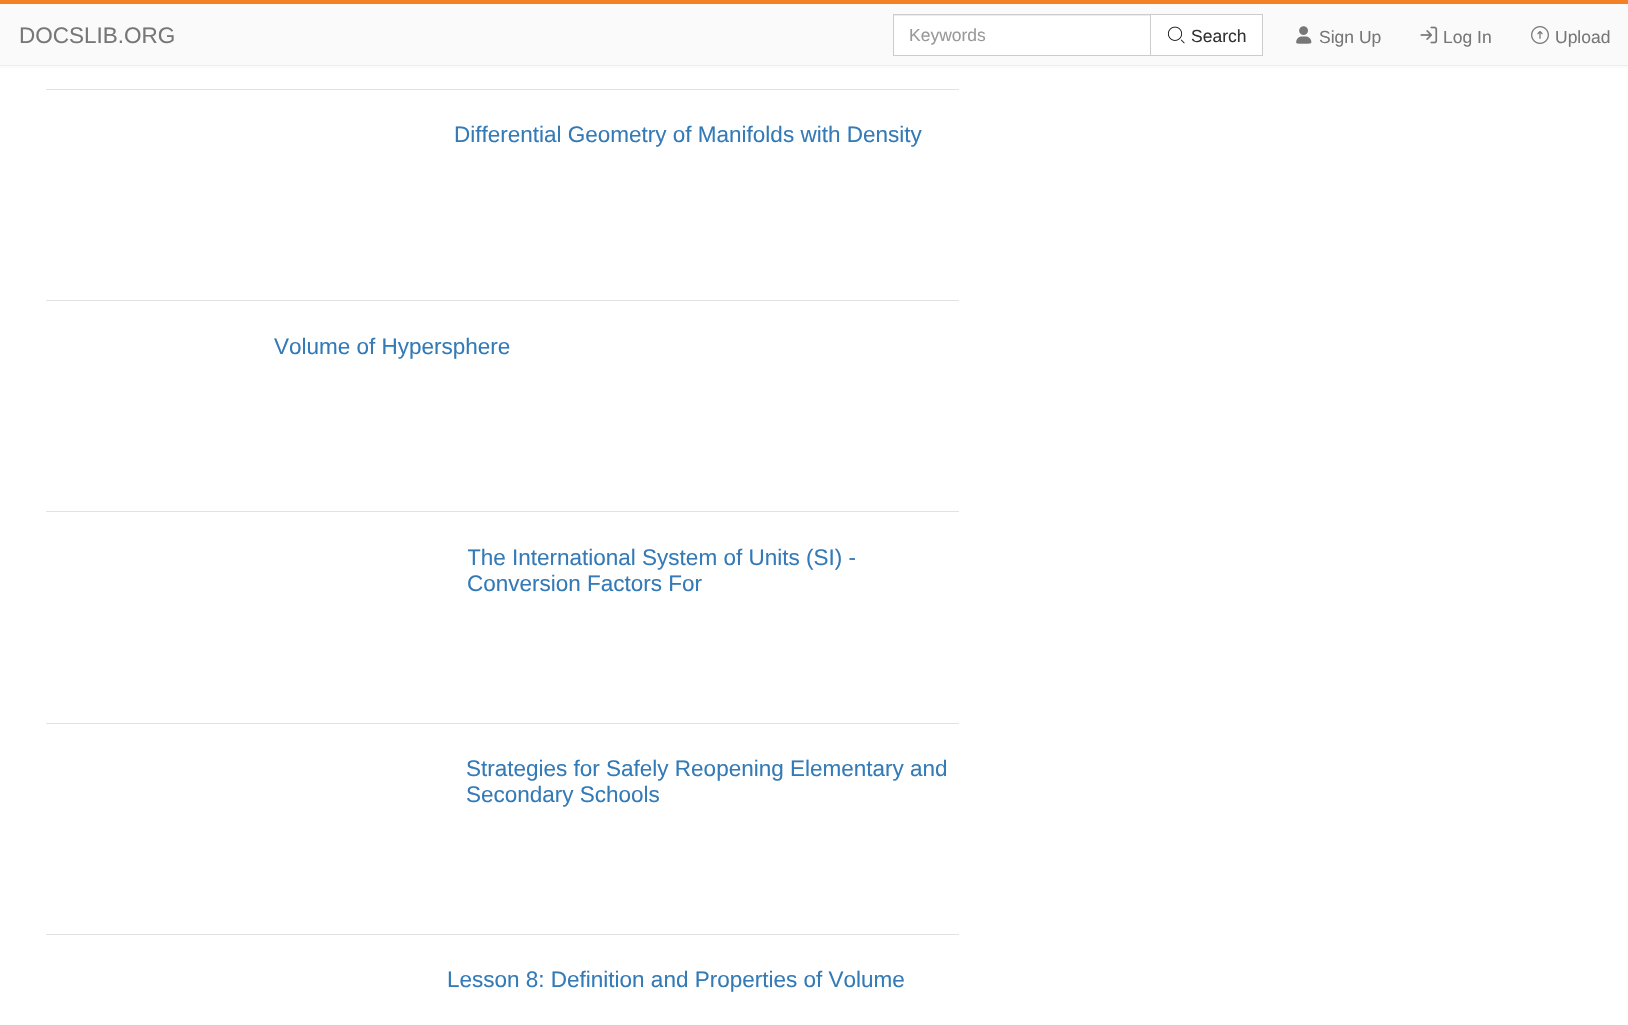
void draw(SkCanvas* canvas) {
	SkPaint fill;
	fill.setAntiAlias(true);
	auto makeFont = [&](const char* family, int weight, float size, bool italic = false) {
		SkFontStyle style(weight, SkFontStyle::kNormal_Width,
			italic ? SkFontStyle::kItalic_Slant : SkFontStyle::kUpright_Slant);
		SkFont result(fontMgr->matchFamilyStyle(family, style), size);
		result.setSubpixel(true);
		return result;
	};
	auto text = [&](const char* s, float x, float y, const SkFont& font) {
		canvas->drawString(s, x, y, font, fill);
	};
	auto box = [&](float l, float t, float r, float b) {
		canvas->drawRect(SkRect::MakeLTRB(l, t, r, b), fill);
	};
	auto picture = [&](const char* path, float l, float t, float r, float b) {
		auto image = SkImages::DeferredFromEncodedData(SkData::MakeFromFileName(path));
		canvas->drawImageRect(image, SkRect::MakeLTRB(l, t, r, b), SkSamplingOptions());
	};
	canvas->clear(0xFFFFFFFF);
	fill.setColor(0xFFFAFAFB);
	box(0, 4, 1628, 68);
	fill.setColor(0xFFF48024);
	box(0, 0, 1628, 4);
	fill.setColor(0xFFEEEEEE);
	box(0, 65, 1628, 66);
	fill.setColor(0xFFFFFFFF);
	box(894, 16, 1150, 55);
	fill.setColor(0xFFECECEC);
	box(894, 15, 1150, 16);
	fill.setStyle(SkPaint::kStroke_Style);
	fill.setStrokeWidth(1);
	fill.setColor(0xFFCCCCCC);
	canvas->drawRect(SkRect::MakeLTRB(893.5f, 14.5f, 1150.5f, 55.5f), fill);
	fill.setStyle(SkPaint::kFill_Style);
	fill.setColor(0xFFFFFFFF);
	canvas->drawRect(SkRect::MakeLTRB(1150.5f, 14.5f, 1262.5f, 55.5f), fill);
	fill.setStyle(SkPaint::kStroke_Style);
	fill.setColor(0xFFCCCCCC);
	canvas->drawRect(SkRect::MakeLTRB(1150.5f, 14.5f, 1262.5f, 55.5f), fill);
	picture("image0.png", 1167, 26, 1185, 44);
	picture("image1.png", 1296, 26, 1312, 44);
	picture("image2.png", 1420, 26, 1438, 44);
	picture("image3.png", 1531, 26, 1549, 44);
	fill.setStyle(SkPaint::kFill_Style);
	fill.setColor(0xFFE2E2E2);
	box(46, 89, 959, 90);
	box(46, 300, 959, 301);
	box(46, 511, 959, 512);
	box(46, 723, 959, 724);
	box(46, 934, 959, 935);
	auto font1 = makeFont("Liberation Sans", 400, 22.5f);
	fill.setColor(0xFF777777);
	text("DOCSLIB.ORG", 19, 43, font1);
	auto font2 = makeFont("Liberation Sans", 400, 17.5f);
	fill.setColor(0xFF999999);
	text("Keywords", 909, 41, font2);
	fill.setColor(0xFF333333);
	text("Search", 1191, 42, font2);
	fill.setColor(0xFF777777);
	text("Sign Up", 1319, 43, font2);
	text("Log In", 1443, 43, font2);
	text("Upload", 1555, 43, font2);
	fill.setColor(0xFF337AB7);
	text("Differential Geometry of Manifolds with Density", 454, 142, font1);
	text("Volume of Hypersphere", 274, 354, font1);
	canvas->save();
	canvas->clipRect(SkRect::MakeLTRB(468, 533, 959, 703));
	text("The International System of Units (SI) -", 467, 565, font1);
	canvas->restore();
	text("Conversion Factors For", 467, 591, font1);
	text("Strategies for Safely Reopening Elementary and", 466, 776, font1);
	text("Secondary Schools", 466, 802, font1);
	text("Lesson 8: Definition and Properties of Volume", 447, 987, font1);
}
